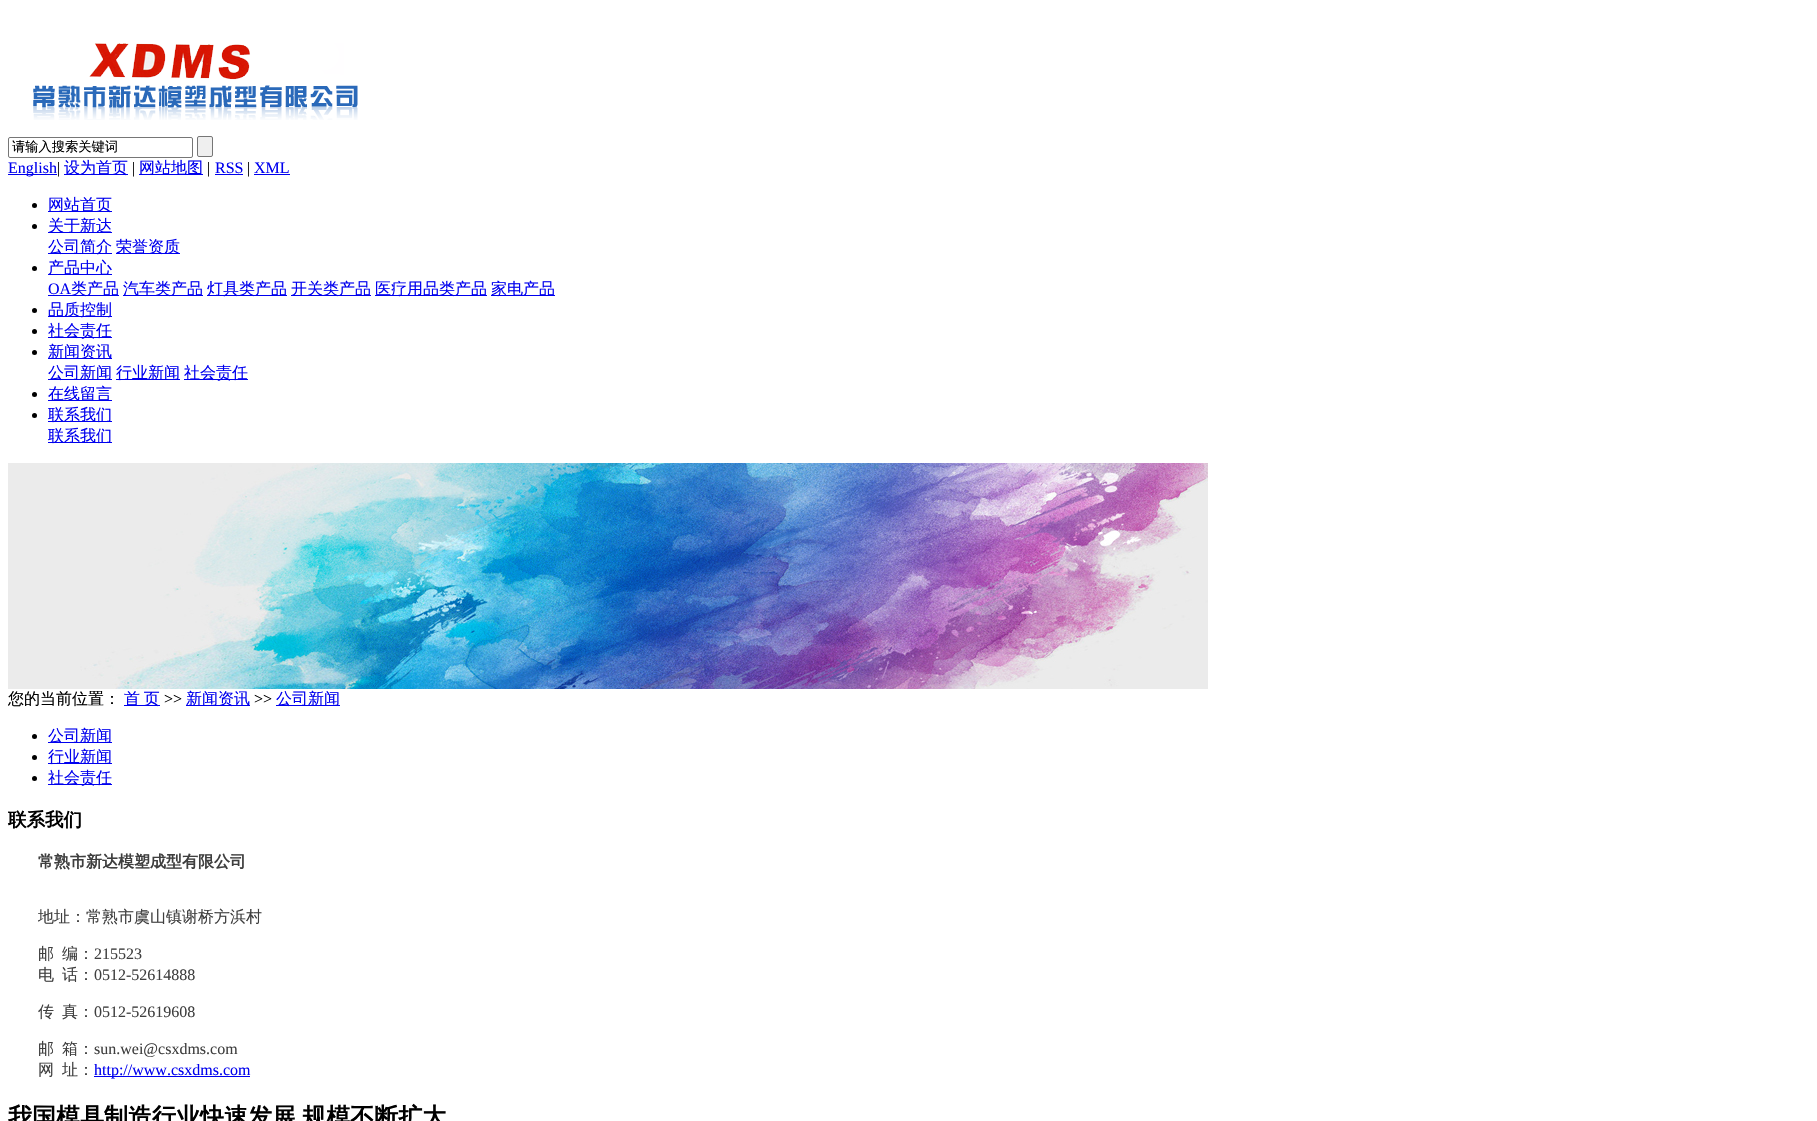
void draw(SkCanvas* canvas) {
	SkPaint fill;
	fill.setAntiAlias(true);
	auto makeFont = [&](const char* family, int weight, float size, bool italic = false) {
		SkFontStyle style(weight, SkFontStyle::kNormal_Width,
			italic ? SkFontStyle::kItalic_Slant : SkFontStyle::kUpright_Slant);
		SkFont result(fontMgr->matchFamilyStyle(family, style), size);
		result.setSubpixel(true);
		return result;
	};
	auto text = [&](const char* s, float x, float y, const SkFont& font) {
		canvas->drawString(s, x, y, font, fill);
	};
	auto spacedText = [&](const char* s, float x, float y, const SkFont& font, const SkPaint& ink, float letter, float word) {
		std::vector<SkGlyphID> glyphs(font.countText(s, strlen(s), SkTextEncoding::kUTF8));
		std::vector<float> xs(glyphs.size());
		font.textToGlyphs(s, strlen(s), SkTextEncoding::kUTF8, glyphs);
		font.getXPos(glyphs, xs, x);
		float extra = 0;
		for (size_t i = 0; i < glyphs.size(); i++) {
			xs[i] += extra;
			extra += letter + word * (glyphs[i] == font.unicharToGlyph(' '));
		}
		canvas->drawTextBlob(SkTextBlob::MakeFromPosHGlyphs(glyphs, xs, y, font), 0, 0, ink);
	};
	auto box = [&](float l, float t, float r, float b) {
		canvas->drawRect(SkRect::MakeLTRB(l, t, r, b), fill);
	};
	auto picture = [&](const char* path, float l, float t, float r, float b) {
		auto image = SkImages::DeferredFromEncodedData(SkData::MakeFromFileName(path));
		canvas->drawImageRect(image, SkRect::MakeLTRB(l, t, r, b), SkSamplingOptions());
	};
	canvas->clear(0xFFFFFFFF);
	picture("image0.png", 33, 43, 358, 120);
	fill.setStyle(SkPaint::kStroke_Style);
	fill.setStrokeWidth(1);
	fill.setColor(0xFF767676);
	canvas->drawRoundRect(SkRect::MakeLTRB(8.5f, 137.5f, 192.5f, 157.5f), 1.5f, 1.5f, fill);
	fill.setStyle(SkPaint::kFill_Style);
	fill.setColor(0xFFEFEFEF);
	canvas->drawRoundRect(SkRect::MakeLTRB(197.5f, 136.5f, 212.5f, 156.5f), 1.5f, 1.5f, fill);
	fill.setStyle(SkPaint::kStroke_Style);
	fill.setColor(0xFF767676);
	canvas->drawRoundRect(SkRect::MakeLTRB(197.5f, 136.5f, 212.5f, 156.5f), 1.5f, 1.5f, fill);
	fill.setStyle(SkPaint::kFill_Style);
	fill.setColor(0xFF0000EE);
	box(8, 174, 57, 175);
	box(64, 174, 128, 175);
	box(139, 174, 203, 175);
	box(215, 174, 243, 175);
	box(254, 174, 290, 175);
	fill.setColor(0xFF000000);
	canvas->drawCircle(34.5f, 205.5f, 2.5f, fill);
	fill.setColor(0xFF0000EE);
	box(48, 211, 112, 212);
	fill.setColor(0xFF000000);
	canvas->drawCircle(34.5f, 226.5f, 2.5f, fill);
	fill.setColor(0xFF0000EE);
	box(48, 232, 112, 233);
	box(48, 253, 112, 254);
	box(116, 253, 180, 254);
	fill.setColor(0xFF000000);
	canvas->drawCircle(34.5f, 268.5f, 2.5f, fill);
	fill.setColor(0xFF0000EE);
	box(48, 274, 112, 275);
	box(48, 295, 119, 296);
	box(123, 295, 203, 296);
	box(207, 295, 287, 296);
	box(291, 295, 371, 296);
	box(375, 295, 487, 296);
	box(491, 295, 555, 296);
	fill.setColor(0xFF000000);
	canvas->drawCircle(34.5f, 310.5f, 2.5f, fill);
	fill.setColor(0xFF0000EE);
	box(48, 316, 112, 317);
	fill.setColor(0xFF000000);
	canvas->drawCircle(34.5f, 331.5f, 2.5f, fill);
	fill.setColor(0xFF0000EE);
	box(48, 337, 112, 338);
	fill.setColor(0xFF000000);
	canvas->drawCircle(34.5f, 352.5f, 2.5f, fill);
	fill.setColor(0xFF0000EE);
	box(48, 358, 112, 359);
	box(48, 379, 112, 380);
	box(116, 379, 180, 380);
	box(184, 379, 248, 380);
	fill.setColor(0xFF000000);
	canvas->drawCircle(34.5f, 394.5f, 2.5f, fill);
	fill.setColor(0xFF0000EE);
	box(48, 400, 112, 401);
	fill.setColor(0xFF000000);
	canvas->drawCircle(34.5f, 415.5f, 2.5f, fill);
	fill.setColor(0xFF0000EE);
	box(48, 421, 112, 422);
	box(48, 442, 112, 443);
	picture("image1.png", 8, 463, 1208, 689);
	box(124, 705, 160, 706);
	box(186, 705, 250, 706);
	box(276, 705, 340, 706);
	fill.setColor(0xFF000000);
	canvas->drawCircle(34.5f, 736.5f, 2.5f, fill);
	fill.setColor(0xFF0000EE);
	box(48, 742, 112, 743);
	fill.setColor(0xFF000000);
	canvas->drawCircle(34.5f, 757.5f, 2.5f, fill);
	fill.setColor(0xFF0000EE);
	box(48, 763, 112, 764);
	fill.setColor(0xFF000000);
	canvas->drawCircle(34.5f, 778.5f, 2.5f, fill);
	fill.setColor(0xFF0000EE);
	box(48, 784, 112, 785);
	box(94, 1076, 250, 1077);
	auto font1 = makeFont("WenQuanYi Zen Hei", 500, 13.25f);
	fill.setColor(0xFF000000);
	text("请输入搜索关键词", 12, 151, font1);
	auto font2 = makeFont("Liberation Serif", 400, 16);
	fill.setColor(0xFF0000EE);
	text("English", 8, 173, font2);
	fill.setColor(0xFF000000);
	text("|", 57, 173, font2);
	auto font3 = makeFont("WenQuanYi Zen Hei", 500, 16);
	fill.setColor(0xFF0000EE);
	text("设为首页", 64, 173, font3);
	fill.setColor(0xFF000000);
	text("|", 132, 173, font2);
	fill.setColor(0xFF0000EE);
	text("网站地图", 139, 173, font3);
	fill.setColor(0xFF000000);
	text("|", 207, 173, font2);
	fill.setColor(0xFF0000EE);
	text("RSS", 215, 173, font2);
	fill.setColor(0xFF000000);
	text("|", 247, 173, font2);
	fill.setColor(0xFF0000EE);
	text("XML", 254, 173, font2);
	text("网站首页", 48, 210, font3);
	text("关于新达", 48, 231, font3);
	text("公司简介", 48, 252, font3);
	text("荣誉资质", 116, 252, font3);
	text("产品中心", 48, 273, font3);
	text("OA", 48, 294, font2);
	text("类产品", 71, 294, font3);
	text("汽车类产品", 123, 294, font3);
	text("灯具类产品", 207, 294, font3);
	text("开关类产品", 291, 294, font3);
	text("医疗用品类产品", 375, 294, font3);
	text("家电产品", 491, 294, font3);
	text("品质控制", 48, 315, font3);
	text("社会责任", 48, 336, font3);
	text("新闻资讯", 48, 357, font3);
	text("公司新闻", 48, 378, font3);
	text("行业新闻", 116, 378, font3);
	text("社会责任", 184, 378, font3);
	text("在线留言", 48, 399, font3);
	text("联系我们", 48, 420, font3);
	text("联系我们", 48, 441, font3);
	fill.setColor(0xFF000000);
	text("您的当前位置：", 8, 704, font3);
	fill.setColor(0xFF0000EE);
	spacedText("首 页", 124, 704, font3, fill, 0, -1);
	fill.setColor(0xFF000000);
	text(">>", 164, 704, font2);
	fill.setColor(0xFF0000EE);
	text("新闻资讯", 186, 704, font3);
	fill.setColor(0xFF000000);
	text(">>", 254, 704, font2);
	fill.setColor(0xFF0000EE);
	text("公司新闻", 276, 704, font3);
	text("公司新闻", 48, 741, font3);
	text("行业新闻", 48, 762, font3);
	text("社会责任", 48, 783, font3);
	auto font4 = makeFont("WenQuanYi Zen Hei", 700, 18.5f);
	fill.setColor(0xFF000000);
	text("联系我们", 8, 826, font4);
	auto font5 = makeFont("WenQuanYi Zen Hei", 700, 16);
	fill.setColor(0xFF3F3F3F);
	text("常熟市新达模塑成型有限公司", 38, 867, font5);
	text("地址：常熟市虞山镇谢桥方浜村", 38, 922, font3);
	text("邮", 38, 959, font3);
	text("编：", 62, 959, font3);
	text("215523", 94, 959, font2);
	text("电", 38, 980, font3);
	text("话：", 62, 980, font3);
	text("0512-52614888", 94, 980, font2);
	text("传", 38, 1017, font3);
	text("真：", 62, 1017, font3);
	text("0512-52619608", 94, 1017, font2);
	text("邮", 38, 1054, font3);
	text("箱：", 62, 1054, font3);
	text("sun.wei@csxdms.com", 94, 1054, font2);
	text("网", 38, 1075, font3);
	text("址：", 62, 1075, font3);
	fill.setColor(0xFF0000EE);
	text("http://www.csxdms.com", 94, 1075, font2);
	auto font6 = makeFont("WenQuanYi Zen Hei", 700, 24);
	fill.setColor(0xFF000000);
	spacedText("我国模具制造行业快速发展 规模不断扩大", 8, 1125, font6, fill, 0, -1);
}
